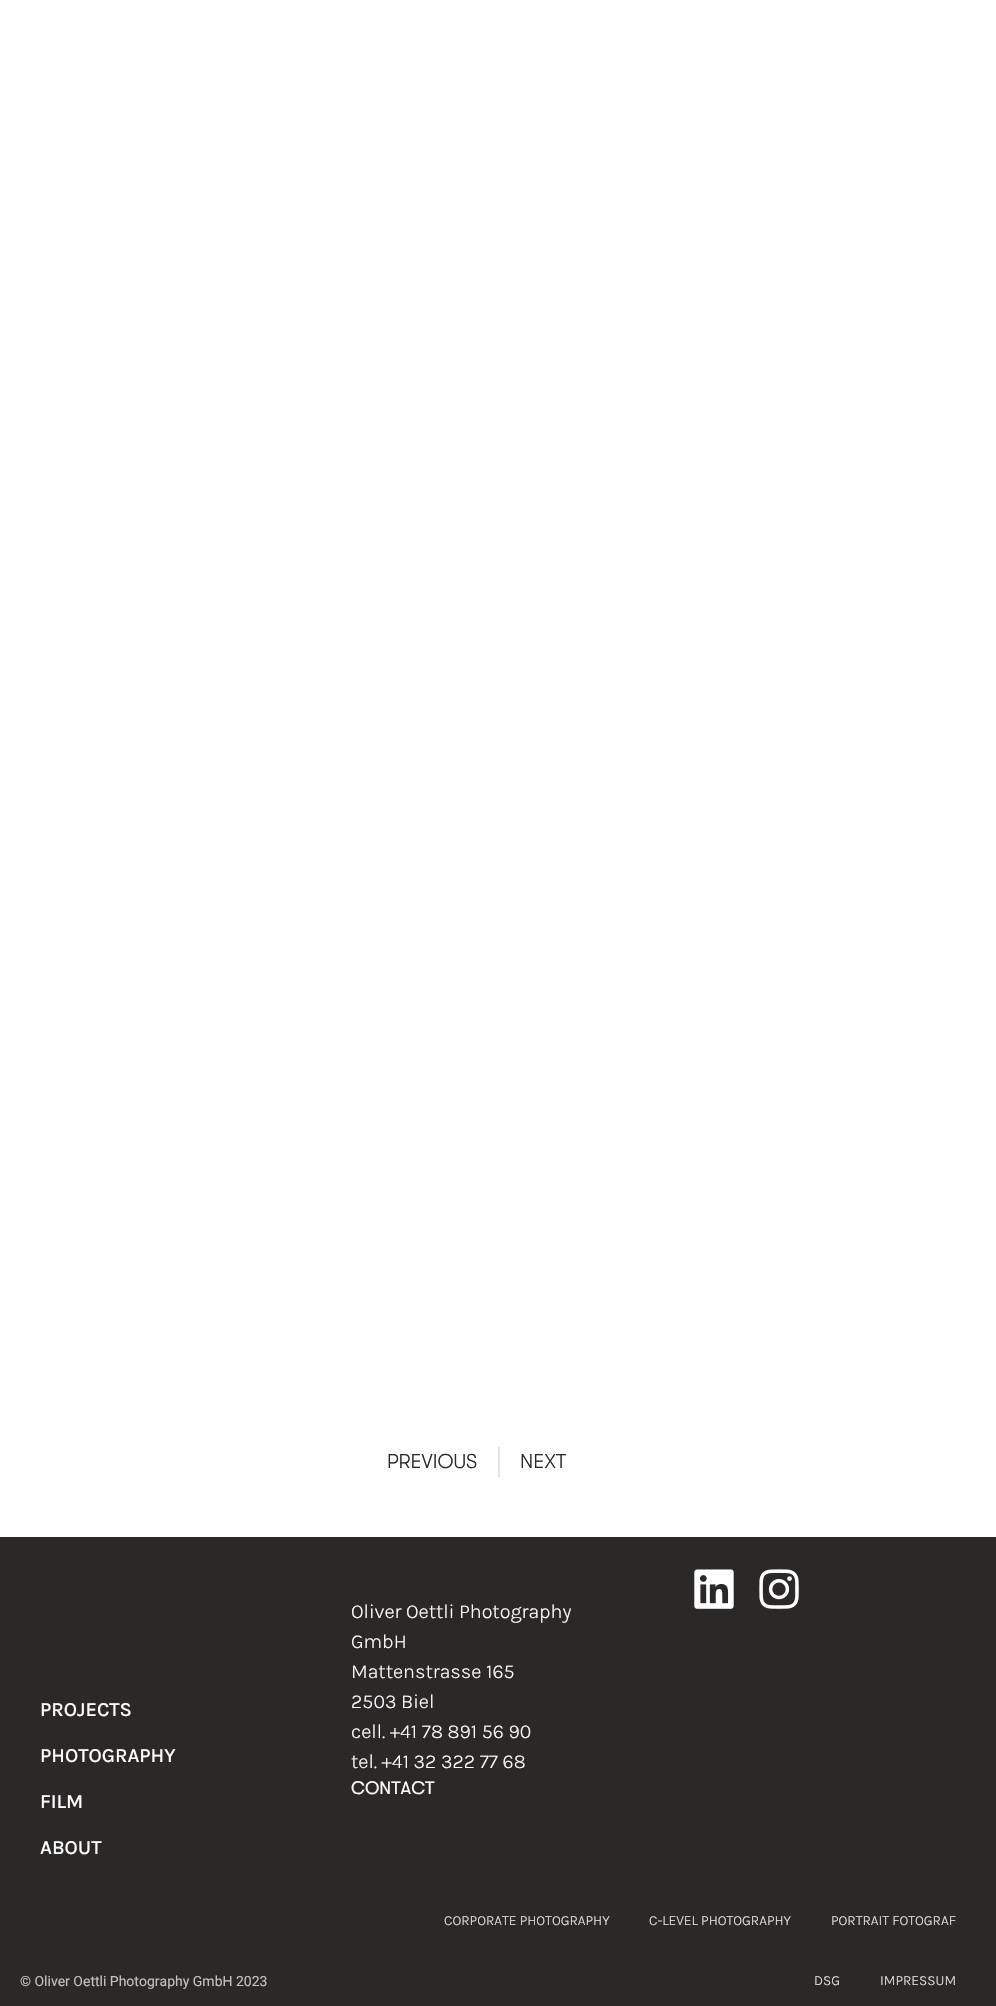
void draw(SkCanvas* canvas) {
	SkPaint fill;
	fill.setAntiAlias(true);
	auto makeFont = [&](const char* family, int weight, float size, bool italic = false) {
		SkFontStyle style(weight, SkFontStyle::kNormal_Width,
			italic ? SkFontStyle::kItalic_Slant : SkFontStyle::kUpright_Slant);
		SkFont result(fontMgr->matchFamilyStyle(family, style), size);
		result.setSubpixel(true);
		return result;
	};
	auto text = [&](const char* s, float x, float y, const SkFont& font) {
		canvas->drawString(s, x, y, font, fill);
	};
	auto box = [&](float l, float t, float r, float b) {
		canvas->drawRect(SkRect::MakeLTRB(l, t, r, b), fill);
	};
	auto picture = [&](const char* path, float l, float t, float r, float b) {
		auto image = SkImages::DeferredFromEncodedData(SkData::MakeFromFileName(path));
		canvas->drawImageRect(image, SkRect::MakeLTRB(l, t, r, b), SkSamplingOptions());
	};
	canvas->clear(0xFFFFFFFF);
	fill.setColor(0xFFE5E5E5);
	box(498, 1447, 500, 1477);
	fill.setColor(0xFF2B2828);
	box(0, 1537, 996, 2006);
	picture("image0.png", 694, 1569, 734, 1609);
	picture("image1.png", 759, 1569, 799, 1609);
	auto font1 = makeFont("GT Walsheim", 300, 20);
	text("PREVIOUS", 387, 1468, font1);
	text("NEXT", 520, 1468, font1);
	auto font2 = makeFont("Karla", 500, 20);
	fill.setColor(0xFFFFFFFF);
	text("PROJECTS", 40, 1716, font2);
	text("PHOTOGRAPHY", 40, 1762, font2);
	text("FILM", 40, 1808, font2);
	text("ABOUT", 40, 1854, font2);
	auto font3 = makeFont("Karla", 300, 20);
	text("Oliver Oettli Photography", 351, 1618, font3);
	text("GmbH", 351, 1648, font3);
	text("Mattenstrasse 165", 351, 1678, font3);
	text("2503 Biel", 351, 1708, font3);
	text("cell. +41 78 891 56 90", 351, 1738, font3);
	text("tel. +41 32 322 77 68", 351, 1768, font3);
	auto font4 = makeFont("GT Walsheim", 400, 18);
	text("CONTACT", 351, 1794, font4);
	auto font5 = makeFont("Karla", 300, 14);
	fill.setColor(0xFFE5E5E5);
	text("CORPORATE PHOTOGRAPHY", 444, 1925, font5);
	text("C-LEVEL PHOTOGRAPHY", 649, 1925, font5);
	text("PORTRAIT FOTOGRAF", 831, 1925, font5);
	auto font6 = makeFont("Roboto", 400, 14);
	fill.setColor(0xFFC2C2C2);
	text("© Oliver Oettli Photography GmbH 2023", 20, 1986, font6);
	fill.setColor(0xFFE5E5E5);
	text("DSG", 814, 1985, font5);
	text("IMPRESSUM", 880, 1985, font5);
}
